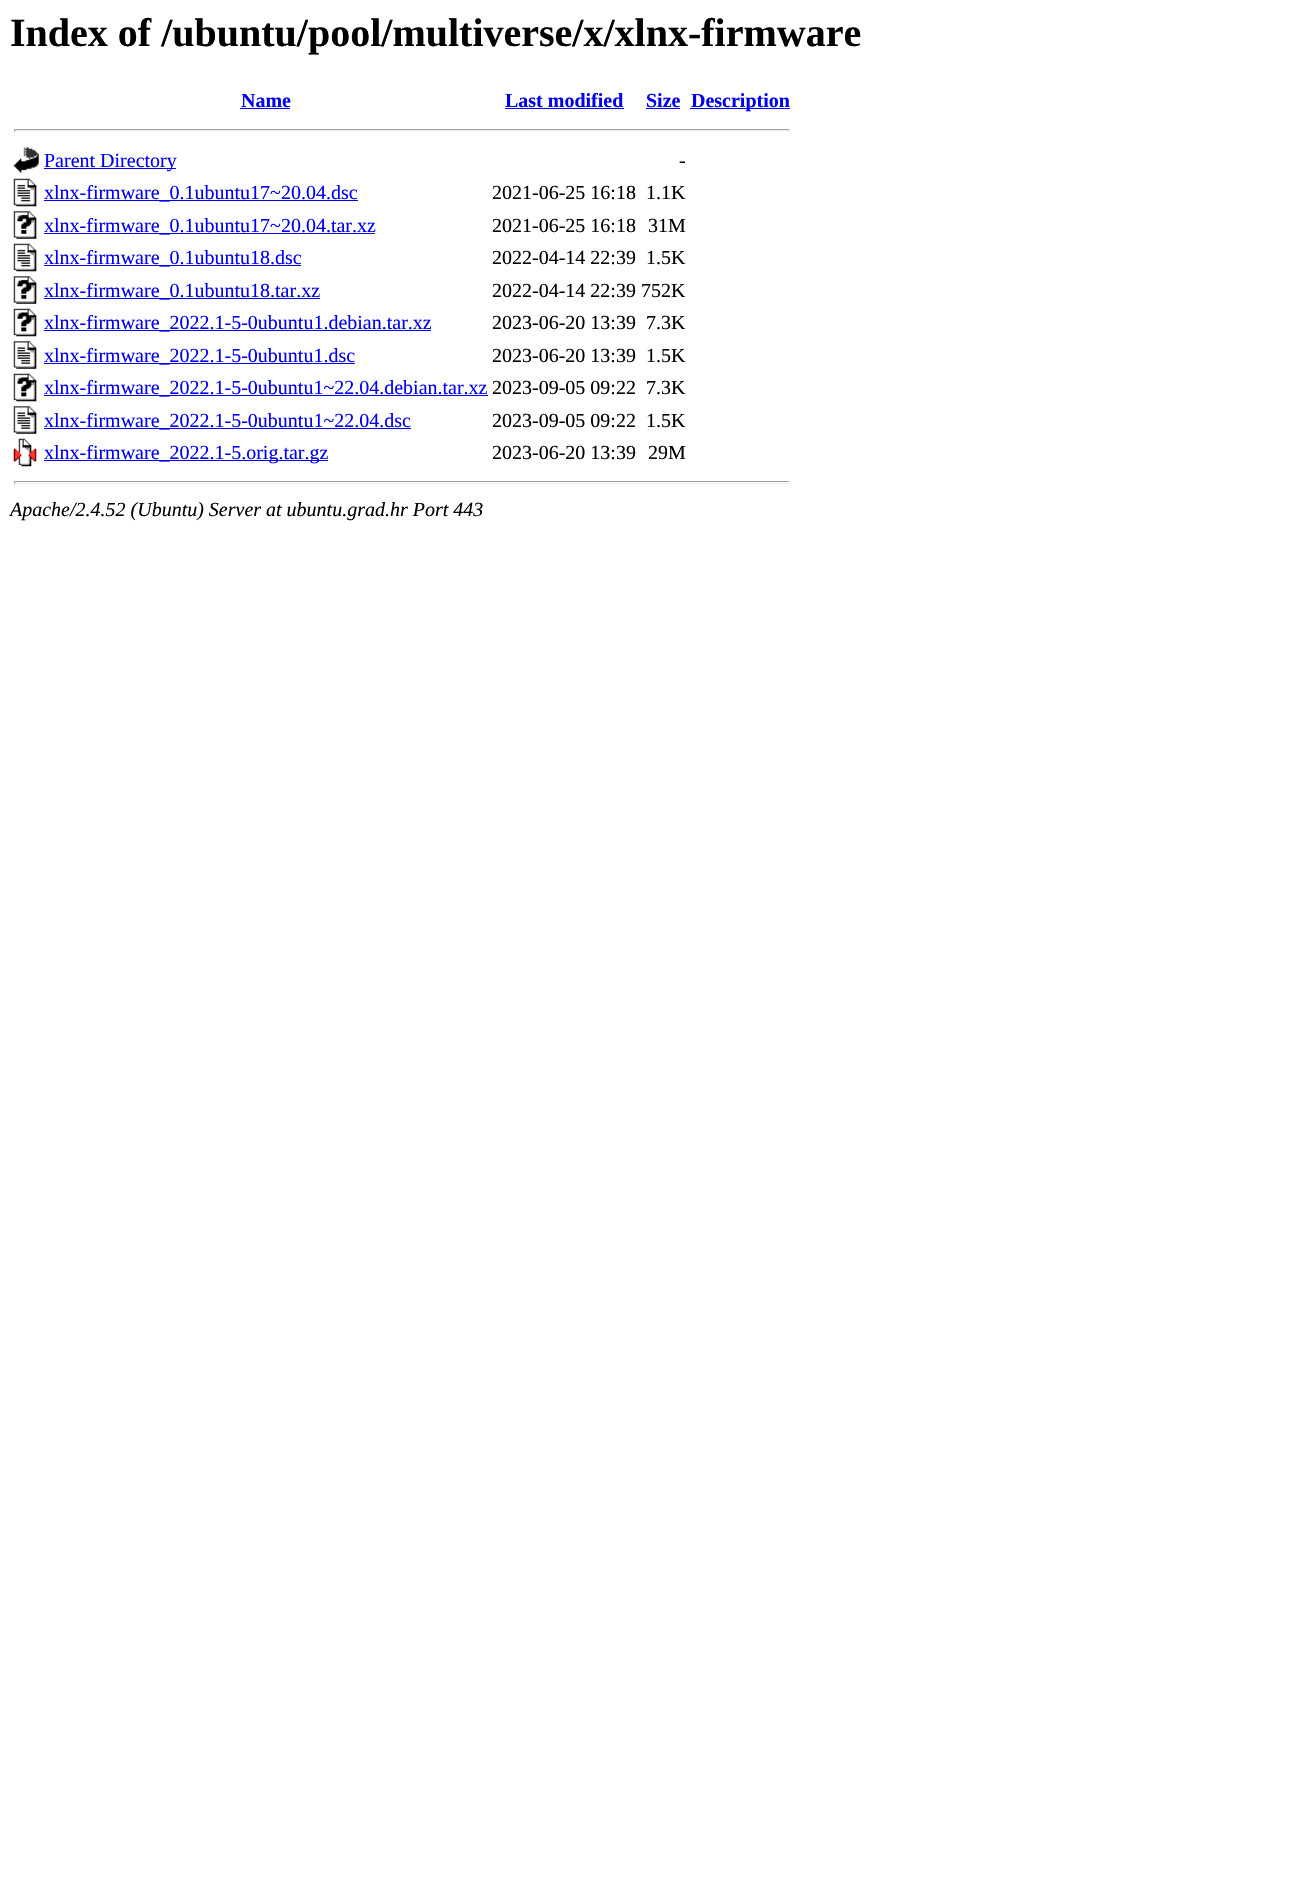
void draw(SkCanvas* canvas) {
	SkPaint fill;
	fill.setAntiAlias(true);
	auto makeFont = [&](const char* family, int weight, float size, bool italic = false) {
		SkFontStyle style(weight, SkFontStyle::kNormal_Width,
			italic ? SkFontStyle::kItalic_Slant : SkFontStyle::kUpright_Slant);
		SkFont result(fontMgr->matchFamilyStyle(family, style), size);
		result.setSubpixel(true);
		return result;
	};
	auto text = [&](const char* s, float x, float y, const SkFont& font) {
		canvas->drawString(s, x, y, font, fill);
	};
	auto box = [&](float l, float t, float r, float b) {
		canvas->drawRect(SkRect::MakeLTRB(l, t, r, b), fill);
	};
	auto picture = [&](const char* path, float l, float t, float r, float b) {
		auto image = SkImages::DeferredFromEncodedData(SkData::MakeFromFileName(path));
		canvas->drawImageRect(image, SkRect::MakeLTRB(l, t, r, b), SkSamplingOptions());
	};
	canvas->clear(0xFFFFFFFF);
	fill.setColor(0xFF0000EE);
	box(240, 108, 290, 109);
	box(505, 108, 624, 109);
	box(646, 108, 680, 109);
	box(690, 108, 790, 109);
	fill.setColor(0xFF9F9F9F);
	box(14, 129, 790, 130);
	fill.setColor(0xFFEEEEEE);
	box(789, 129, 790, 132);
	box(14, 130, 790, 131);
	fill.setColor(0xFF9F9F9F);
	box(14, 129, 15, 132);
	picture("image0.png", 13, 147, 39, 173);
	fill.setColor(0xFF0000EE);
	box(44, 168, 176, 169);
	picture("image1.png", 13, 178, 37, 207);
	box(44, 200, 358, 201);
	picture("image2.png", 13, 211, 37, 239);
	box(44, 233, 375, 234);
	picture("image1.png", 13, 243, 37, 272);
	box(44, 265, 301, 266);
	picture("image3.png", 13, 276, 37, 304);
	box(44, 298, 320, 299);
	picture("image4.png", 13, 308, 37, 337);
	box(44, 330, 431, 331);
	picture("image5.png", 13, 341, 37, 369);
	box(44, 363, 355, 364);
	picture("image4.png", 13, 373, 37, 402);
	box(44, 395, 488, 396);
	picture("image5.png", 13, 406, 37, 434);
	box(44, 428, 411, 429);
	picture("image6.png", 13, 438, 37, 467);
	box(44, 460, 328, 461);
	fill.setColor(0xFF9F9F9F);
	box(14, 481, 790, 482);
	fill.setColor(0xFFEEEEEE);
	box(789, 481, 790, 484);
	box(14, 483, 790, 484);
	fill.setColor(0xFF9F9F9F);
	box(14, 481, 15, 484);
	auto font1 = makeFont("Liberation Serif", 700, 40);
	fill.setColor(0xFF000000);
	text("Index of /ubuntu/pool/multiverse/x/xlnx-firmware", 10, 46, font1);
	auto font2 = makeFont("Liberation Serif", 700, 20);
	fill.setColor(0xFF0000EE);
	text("Name", 241, 107, font2);
	text("Last modified", 505, 107, font2);
	text("Size", 646, 107, font2);
	text("Description", 691, 107, font2);
	auto font3 = makeFont("Liberation Serif", 400, 20);
	text("Parent Directory", 44, 167, font3);
	fill.setColor(0xFF000000);
	text("-", 679, 167, font3);
	fill.setColor(0xFF0000EE);
	text("xlnx-firmware_0.1ubuntu17~20.04.dsc", 44, 199, font3);
	fill.setColor(0xFF000000);
	text("2021-06-25 16:18", 492, 199, font3);
	text("1.1K", 646, 199, font3);
	fill.setColor(0xFF0000EE);
	text("xlnx-firmware_0.1ubuntu17~20.04.tar.xz", 44, 232, font3);
	fill.setColor(0xFF000000);
	text("2021-06-25 16:18", 492, 232, font3);
	text("31M", 648, 232, font3);
	fill.setColor(0xFF0000EE);
	text("xlnx-firmware_0.1ubuntu18.dsc", 44, 264, font3);
	fill.setColor(0xFF000000);
	text("2022-04-14 22:39", 492, 264, font3);
	text("1.5K", 646, 264, font3);
	fill.setColor(0xFF0000EE);
	text("xlnx-firmware_0.1ubuntu18.tar.xz", 44, 297, font3);
	fill.setColor(0xFF000000);
	text("2022-04-14 22:39 752K", 492, 297, font3);
	fill.setColor(0xFF0000EE);
	text("xlnx-firmware_2022.1-5-0ubuntu1.debian.tar.xz", 44, 329, font3);
	fill.setColor(0xFF000000);
	text("2023-06-20 13:39", 492, 329, font3);
	text("7.3K", 646, 329, font3);
	fill.setColor(0xFF0000EE);
	text("xlnx-firmware_2022.1-5-0ubuntu1.dsc", 44, 362, font3);
	fill.setColor(0xFF000000);
	text("2023-06-20 13:39", 492, 362, font3);
	text("1.5K", 646, 362, font3);
	fill.setColor(0xFF0000EE);
	text("xlnx-firmware_2022.1-5-0ubuntu1~22.04.debian.tar.xz", 44, 394, font3);
	fill.setColor(0xFF000000);
	text("2023-09-05 09:22", 492, 394, font3);
	text("7.3K", 646, 394, font3);
	fill.setColor(0xFF0000EE);
	text("xlnx-firmware_2022.1-5-0ubuntu1~22.04.dsc", 44, 427, font3);
	fill.setColor(0xFF000000);
	text("2023-09-05 09:22", 492, 427, font3);
	text("1.5K", 646, 427, font3);
	fill.setColor(0xFF0000EE);
	text("xlnx-firmware_2022.1-5.orig.tar.gz", 44, 459, font3);
	fill.setColor(0xFF000000);
	text("2023-06-20 13:39", 492, 459, font3);
	text("29M", 648, 459, font3);
	auto font4 = makeFont("Liberation Serif", 400, 20, true);
	text("Apache/2.4.52 (Ubuntu) Server at ubuntu.grad.hr Port 443", 10, 516, font4);
}
